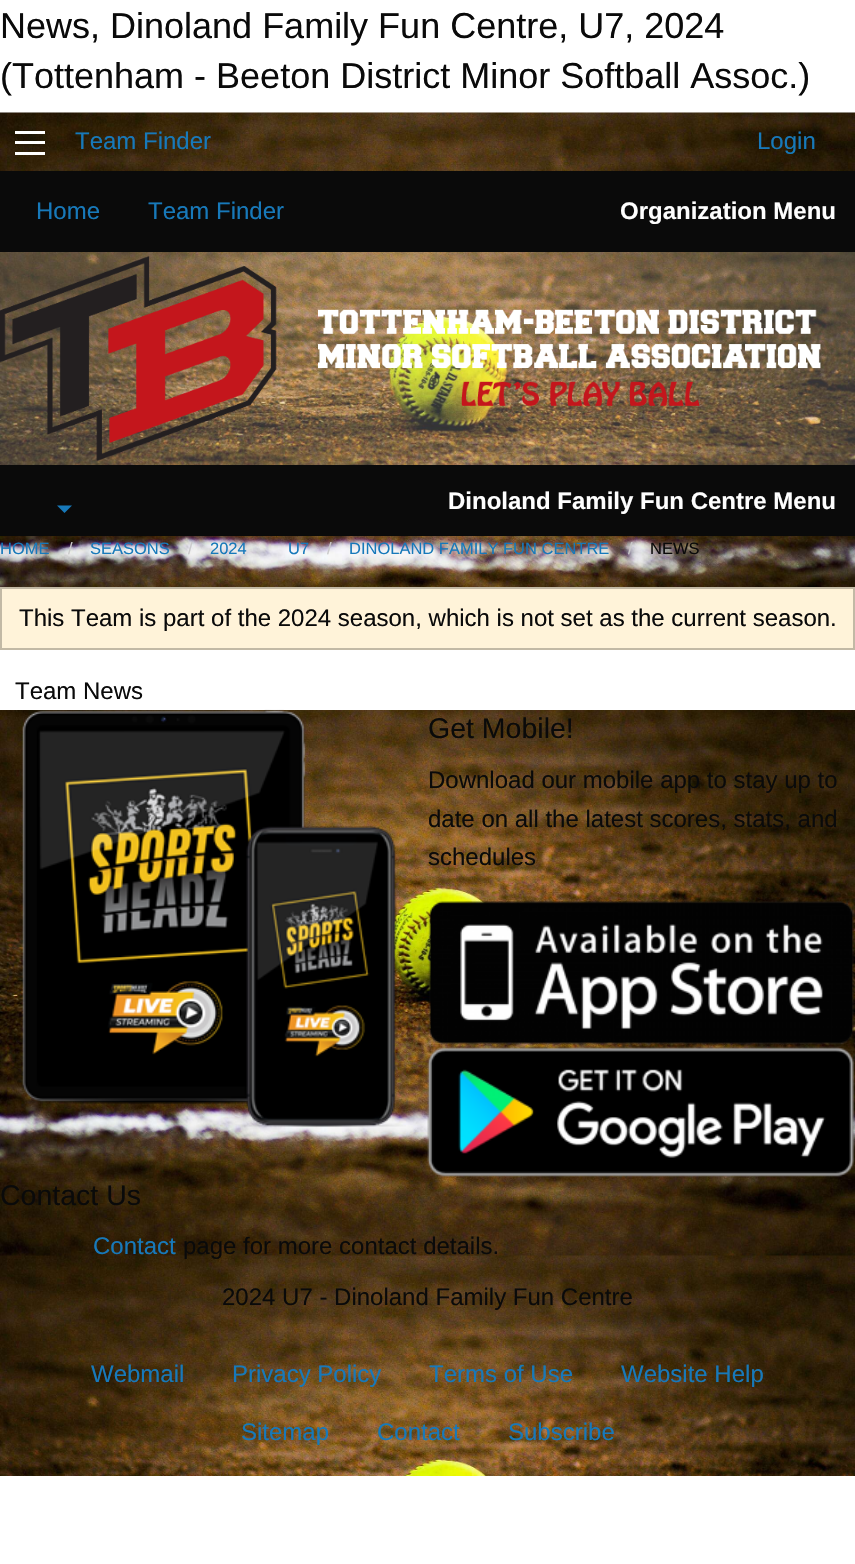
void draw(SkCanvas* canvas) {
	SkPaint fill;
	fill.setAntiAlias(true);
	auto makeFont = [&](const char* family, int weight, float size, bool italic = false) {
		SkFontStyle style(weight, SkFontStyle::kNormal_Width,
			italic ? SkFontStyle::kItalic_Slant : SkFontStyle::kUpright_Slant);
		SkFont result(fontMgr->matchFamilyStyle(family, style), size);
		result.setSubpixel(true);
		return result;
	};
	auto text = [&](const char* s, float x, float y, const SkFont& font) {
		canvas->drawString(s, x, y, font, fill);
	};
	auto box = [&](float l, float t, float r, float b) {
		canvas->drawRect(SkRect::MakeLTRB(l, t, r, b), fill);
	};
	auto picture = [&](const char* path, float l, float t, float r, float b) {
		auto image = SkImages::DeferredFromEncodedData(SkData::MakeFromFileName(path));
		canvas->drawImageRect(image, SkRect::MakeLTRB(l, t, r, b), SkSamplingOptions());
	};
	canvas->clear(0xFFFFFFFF);
	picture("image0.png", 0, 112, 855, 1476);
	fill.setColor(0xFFFEFEFE);
	box(15, 152, 45, 155);
	box(15, 141, 45, 144);
	box(15, 131, 45, 134);
	fill.setColor(0xFF0A0A0A);
	box(0, 171, 855, 252);
	fill.setColor(0x33FFFFFF);
	box(0, 252, 855, 465);
	picture("image1.png", 0, 256, 277, 461);
	picture("image2.png", 318, 309, 821, 406);
	fill.setColor(0xFF0A0A0A);
	box(0, 465, 855, 536);
	fill.setColor(0xFF1779BA);
	canvas->drawPath(SkPathBuilder().moveTo(57, 505.5f).lineTo(72, 505.5f).lineTo(64.5f, 513).close().detach(), fill);
	fill.setColor(0xFFFFFFFF);
	box(0, 650, 855, 710);
	fill.setColor(0xFFFFF3D9);
	canvas->drawRect(SkRect::MakeLTRB(1, 588, 854, 649), fill);
	fill.setStyle(SkPaint::kStroke_Style);
	fill.setStrokeWidth(2);
	fill.setColor(0xFFC2B9A5);
	canvas->drawRect(SkRect::MakeLTRB(1, 588, 854, 649), fill);
	picture("image3.png", 22, 709, 406, 1127);
	picture("image4.png", 428, 901, 854, 1045);
	picture("image5.png", 427, 1046, 854, 1177);
	auto font1 = makeFont("Liberation Sans", 400, 36);
	fill.setStyle(SkPaint::kFill_Style);
	fill.setColor(0xFF0A0A0A);
	text("News, Dinoland Family Fun Centre, U7, 2024", 0, 38, font1);
	text("(Tottenham - Beeton District Minor Softball Assoc.)", 0, 88, font1);
	auto font2 = makeFont("Liberation Sans", 400, 24);
	fill.setColor(0xFF1779BA);
	text("Team Finder", 75, 149, font2);
	text("Login", 757, 149, font2);
	text("Home", 36, 219, font2);
	text("Team Finder", 148, 219, font2);
	auto font3 = makeFont("Liberation Sans", 700, 24);
	fill.setColor(0xFFFEFEFE);
	text("Organization Menu", 620, 219, font3);
	text("Dinoland Family Fun Centre Menu", 448, 509, font3);
	auto font4 = makeFont("Liberation Sans", 400, 16.5f);
	fill.setColor(0xFF1779BA);
	text("HOME", 0, 554, font4);
	fill.setColor(0xFFCACACA);
	text("/", 68, 554, font4);
	fill.setColor(0xFF1779BA);
	text("SEASONS", 90, 554, font4);
	fill.setColor(0xFFCACACA);
	text("/", 188, 554, font4);
	fill.setColor(0xFF1779BA);
	text("2024", 210, 554, font4);
	text("U7", 288, 554, font4);
	fill.setColor(0xFFCACACA);
	text("/", 327, 554, font4);
	fill.setColor(0xFF1779BA);
	text("DINOLAND FAMILY FUN CENTRE", 349, 554, font4);
	fill.setColor(0xFFCACACA);
	text("/", 628, 554, font4);
	fill.setColor(0xFF0A0A0A);
	text("NEWS", 650, 554, font4);
	text("This Team is part of the 2024 season, which is not set as the current season.", 19, 626, font2);
	text("Team News", 15, 699, font2);
	auto font5 = makeFont("Liberation Sans", 400, 28.5f);
	text("Get Mobile!", 428, 738, font5);
	text("Download our mobile app to stay up to", 428, 788, font2);
	text("date on all the latest scores, stats, and", 428, 827, font2);
	text("schedules", 428, 865, font2);
	text("Contact Us", 0, 1205, font5);
	fill.setColor(0xFF1779BA);
	text("Contact", 93, 1254, font2);
	fill.setColor(0xFF0A0A0A);
	text("page for more contact details.", 183, 1254, font2);
	text("2024 U7 - Dinoland Family Fun Centre", 222, 1305, font2);
	fill.setColor(0xFF1779BA);
	text("Webmail", 91, 1382, font2);
	text("Privacy Policy", 232, 1382, font2);
	text("Terms of Use", 429, 1382, font2);
	text("Website Help", 621, 1382, font2);
	text("Sitemap", 241, 1440, font2);
	text("Contact", 377, 1440, font2);
	text("Subscribe", 508, 1440, font2);
}
